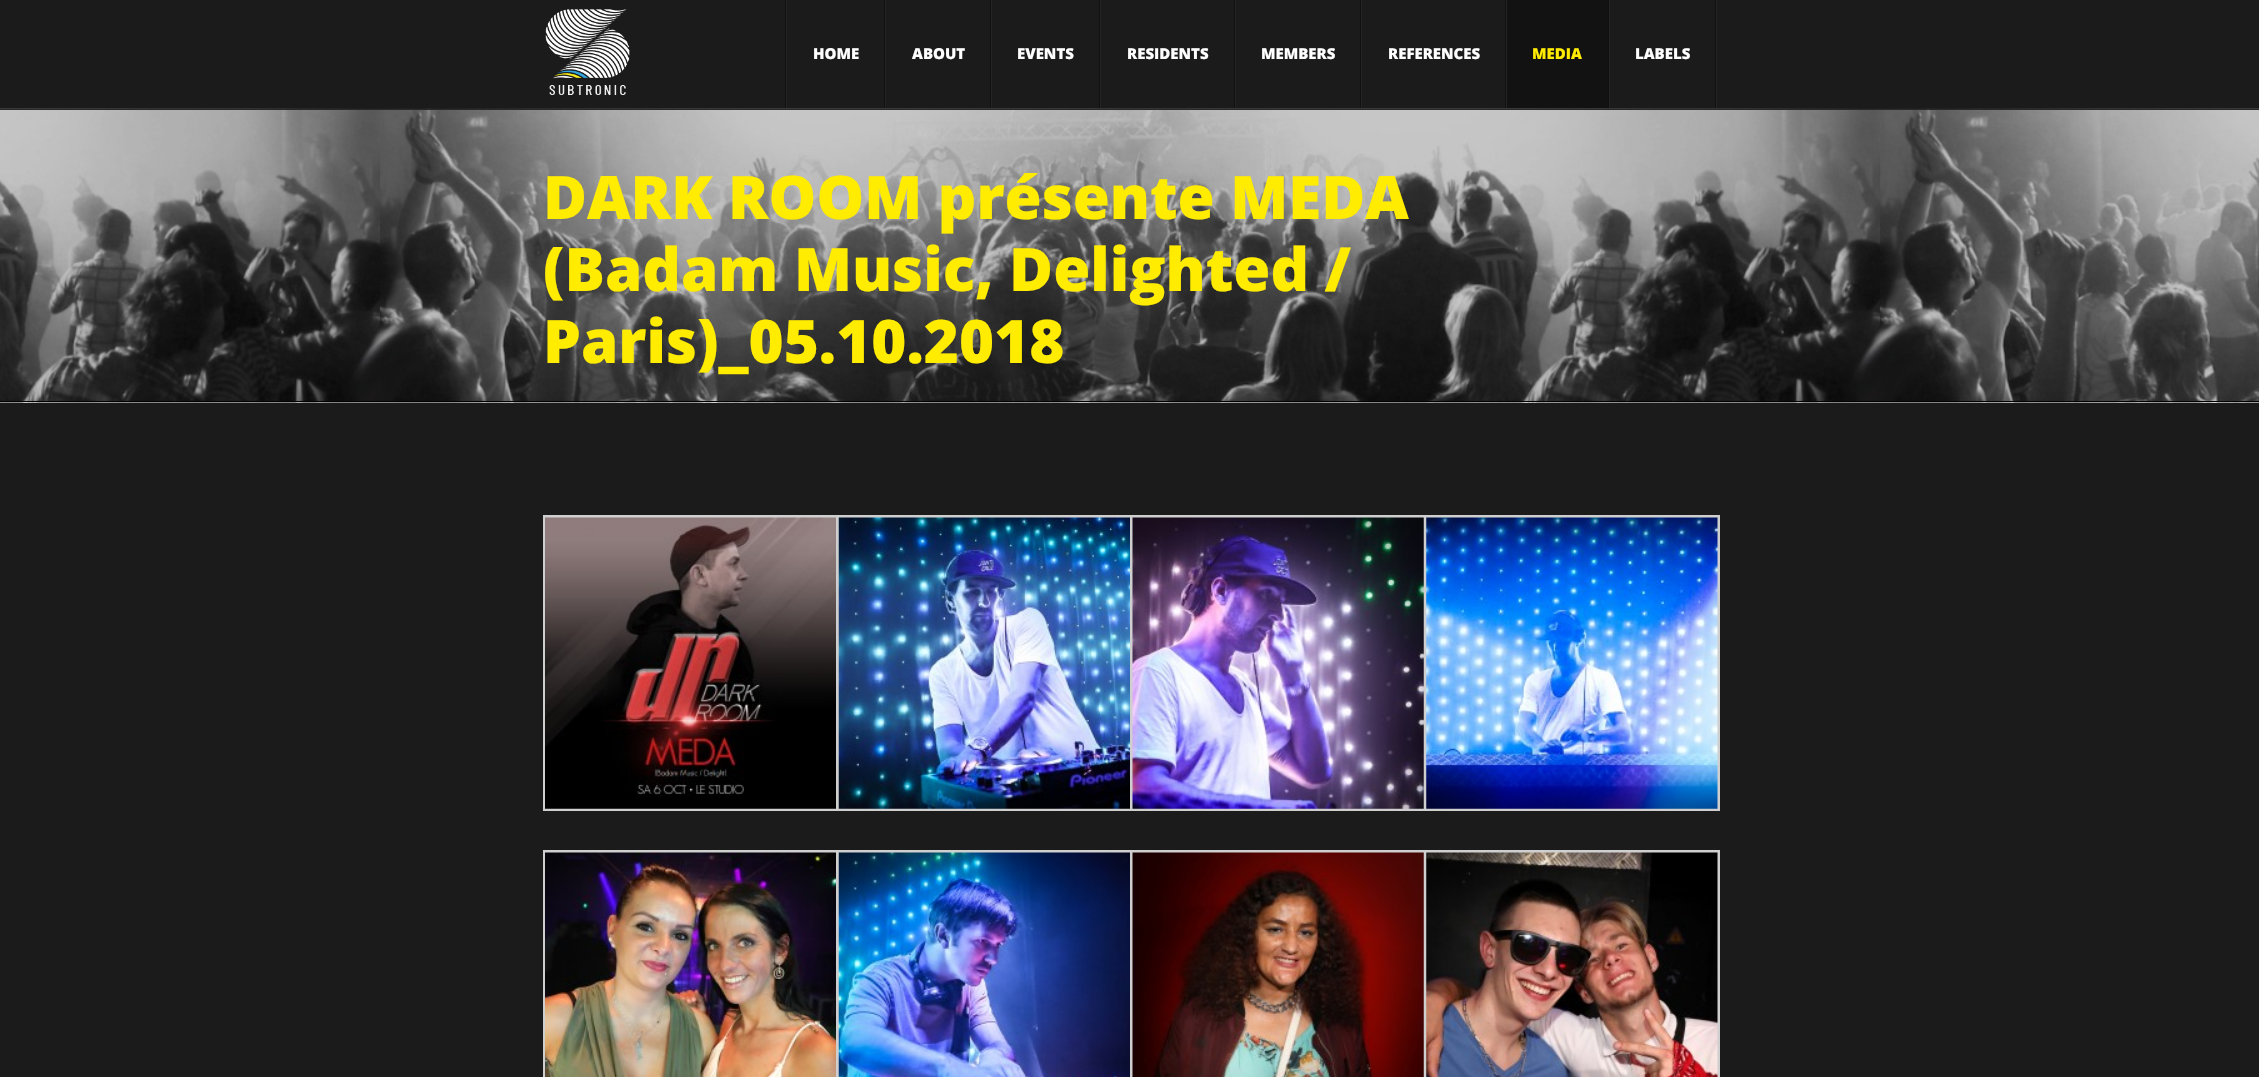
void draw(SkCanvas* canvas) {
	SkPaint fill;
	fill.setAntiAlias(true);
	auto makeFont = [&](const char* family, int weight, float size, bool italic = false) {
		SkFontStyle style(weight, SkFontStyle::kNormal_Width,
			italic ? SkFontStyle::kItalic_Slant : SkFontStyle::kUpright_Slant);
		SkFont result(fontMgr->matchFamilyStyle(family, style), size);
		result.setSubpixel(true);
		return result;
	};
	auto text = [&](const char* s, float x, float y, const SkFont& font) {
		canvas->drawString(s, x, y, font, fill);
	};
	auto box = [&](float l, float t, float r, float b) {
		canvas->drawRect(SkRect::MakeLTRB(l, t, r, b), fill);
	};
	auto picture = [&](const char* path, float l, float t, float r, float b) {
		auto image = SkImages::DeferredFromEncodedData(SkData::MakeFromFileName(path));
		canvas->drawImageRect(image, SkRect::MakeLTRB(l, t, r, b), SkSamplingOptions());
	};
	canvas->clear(0xFF1B1B1B);
	fill.setColor(0xFF0A0A0A);
	box(0, 108, 2259, 109);
	picture("image0.png", 545, 9, 630, 95);
	fill.setColor(0xFF242424);
	box(1716, 0, 1717, 108);
	fill.setColor(0xFF111111);
	box(785, 0, 786, 108);
	box(884, 0, 885, 108);
	fill.setColor(0xFF242424);
	box(786, 0, 787, 108);
	fill.setColor(0xFF111111);
	box(990, 0, 991, 108);
	fill.setColor(0xFF242424);
	box(885, 0, 886, 108);
	fill.setColor(0xFF111111);
	box(1099, 0, 1100, 108);
	fill.setColor(0xFF242424);
	box(991, 0, 992, 108);
	fill.setColor(0xFF111111);
	box(1234, 0, 1235, 108);
	fill.setColor(0xFF242424);
	box(1100, 0, 1101, 108);
	fill.setColor(0xFF111111);
	box(1360, 0, 1361, 108);
	fill.setColor(0xFF242424);
	box(1235, 0, 1236, 108);
	fill.setColor(0xFF111111);
	box(1505, 0, 1506, 108);
	fill.setColor(0xFF242424);
	box(1361, 0, 1362, 108);
	fill.setColor(0xFF121212);
	box(1507, 0, 1608, 108);
	fill.setColor(0xFF0F0F0F);
	box(1608, 0, 1609, 108);
	fill.setColor(0xFF242424);
	box(1506, 0, 1507, 108);
	fill.setColor(0xFF111111);
	box(1715, 0, 1716, 108);
	fill.setColor(0xFF242424);
	box(1609, 0, 1610, 108);
	fill.setColor(0xFFFFFFFF);
	box(0, 402, 2259, 403);
	picture("image1.png", 0, 108, 2259, 403);
	fill.setColor(0xFF292929);
	box(0, 109, 2259, 110);
	fill.setColor(0xFF000000);
	box(0, 401, 2259, 402);
	fill.setStyle(SkPaint::kStroke_Style);
	fill.setStrokeWidth(3);
	fill.setColor(0xFFCFCFCF);
	canvas->drawRect(SkRect::MakeLTRB(544.5f, 516.5f, 837.5f, 809.5f), fill);
	picture("image2.png", 545, 517, 836, 809);
	canvas->drawRect(SkRect::MakeLTRB(837.5f, 516.5f, 1131.5f, 809.5f), fill);
	picture("image3.png", 838, 517, 1130, 809);
	canvas->drawRect(SkRect::MakeLTRB(1131.5f, 516.5f, 1424.5f, 809.5f), fill);
	picture("image4.png", 1132, 517, 1424, 809);
	canvas->drawRect(SkRect::MakeLTRB(1425.5f, 516.5f, 1718.5f, 809.5f), fill);
	picture("image5.png", 1426, 517, 1718, 809);
	canvas->drawRect(SkRect::MakeLTRB(544.5f, 851.5f, 837.5f, 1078.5f), fill);
	picture("image6.png", 545, 852, 836, 1077);
	canvas->drawRect(SkRect::MakeLTRB(837.5f, 851.5f, 1131.5f, 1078.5f), fill);
	picture("image7.png", 838, 852, 1130, 1077);
	canvas->drawRect(SkRect::MakeLTRB(1131.5f, 851.5f, 1424.5f, 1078.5f), fill);
	picture("image8.png", 1132, 852, 1424, 1077);
	canvas->drawRect(SkRect::MakeLTRB(1425.5f, 851.5f, 1718.5f, 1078.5f), fill);
	picture("image9.png", 1426, 852, 1718, 1077);
	auto font1 = makeFont("Open Sans", 800, 15);
	fill.setStyle(SkPaint::kFill_Style);
	fill.setColor(0xFFFFFFFF);
	text("HOME", 813, 59, font1);
	text("ABOUT", 912, 59, font1);
	text("EVENTS", 1017, 59, font1);
	text("RESIDENTS", 1127, 59, font1);
	text("MEMBERS", 1261, 59, font1);
	text("REFERENCES", 1388, 59, font1);
	fill.setColor(0xFFFFEC00);
	text("MEDIA", 1532, 59, font1);
	fill.setColor(0xFFFFFFFF);
	text("LABELS", 1635, 59, font1);
	auto font2 = makeFont("Open Sans", 800, 60);
	fill.setColor(0xFFFFEC00);
	text("DARK ROOM présente MEDA", 543, 219, font2);
	text("(Badam Music, Delighted /", 543, 291, font2);
	text("Paris)_05.10.2018", 543, 363, font2);
}
